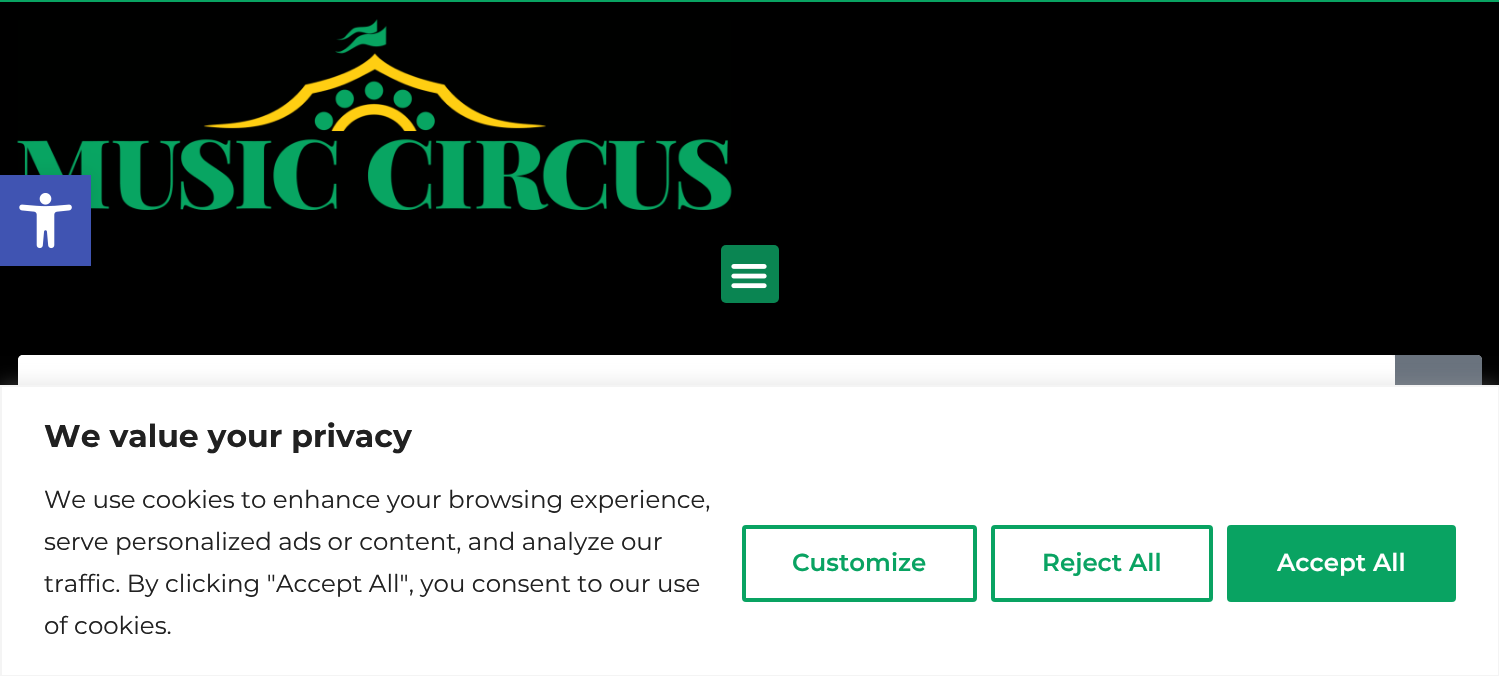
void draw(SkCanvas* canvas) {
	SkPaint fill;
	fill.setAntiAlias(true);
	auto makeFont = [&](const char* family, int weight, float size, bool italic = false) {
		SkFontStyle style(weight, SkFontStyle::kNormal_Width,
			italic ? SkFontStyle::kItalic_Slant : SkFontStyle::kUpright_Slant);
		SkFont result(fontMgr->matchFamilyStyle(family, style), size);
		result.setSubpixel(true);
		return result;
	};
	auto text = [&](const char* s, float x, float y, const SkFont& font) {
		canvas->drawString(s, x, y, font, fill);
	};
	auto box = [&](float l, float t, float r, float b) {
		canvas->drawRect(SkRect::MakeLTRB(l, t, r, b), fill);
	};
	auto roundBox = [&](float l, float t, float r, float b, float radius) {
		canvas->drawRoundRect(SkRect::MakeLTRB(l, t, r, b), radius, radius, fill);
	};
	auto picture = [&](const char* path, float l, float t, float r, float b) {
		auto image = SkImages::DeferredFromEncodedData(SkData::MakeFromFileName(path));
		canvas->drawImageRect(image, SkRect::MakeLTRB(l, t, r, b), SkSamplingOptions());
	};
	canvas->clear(0xFF09A362);
	fill.setColor(0xFF000000);
	box(0, 2, 1499, 385);
	picture("image0.png", 17, 19, 732, 210);
	fill.setColor(0xFF0A8552);
	roundBox(721, 245, 779, 303, 5);
	picture("image1.png", 731, 264, 767, 289);
	fill.setColor(0xFFF1F2F3);
	roundBox(18, 355, 1482, 443, 5);
	fill.setColor(0xFFFFFFFF);
	roundBox(18, 355, 1395, 443, 5);
	fill.setColor(0xFF69727D);
	canvas->drawPath(SkPathBuilder().moveTo(1395, 355).lineTo(1477, 355).cubicTo(1480, 355, 1482, 357, 1482, 360).lineTo(1482, 438).cubicTo(1482, 441, 1480, 443, 1477, 443).lineTo(1395, 443).close().detach(), fill);
	fill.setColor(0x1A000000);
	fill.setMaskFilter(SkMaskFilter::MakeBlur(kNormal_SkBlurStyle, 9));
	canvas->drawRect(SkRect::MakeLTRB(0, 175, 91, 266), fill);
	fill.setMaskFilter(nullptr);
	fill.setColor(0xFF4054B2);
	box(0, 175, 91, 266);
	picture("image2.png", 19, 193, 72, 249);
	fill.setColor(0x4DACABAB);
	fill.setMaskFilter(SkMaskFilter::MakeBlur(kNormal_SkBlurStyle, 9));
	canvas->drawRect(SkRect::MakeLTRB(0, 383, 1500, 676), fill);
	fill.setMaskFilter(nullptr);
	fill.setColor(0xFFFFFFFF);
	canvas->drawRect(SkRect::MakeLTRB(1, 386, 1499, 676), fill);
	fill.setStyle(SkPaint::kStroke_Style);
	fill.setStrokeWidth(2);
	fill.setColor(0xFFF4F4F4);
	canvas->drawRect(SkRect::MakeLTRB(1, 386, 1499, 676), fill);
	fill.setStrokeWidth(4);
	fill.setColor(0xFF09A362);
	canvas->drawRoundRect(SkRect::MakeLTRB(744, 527, 975, 600), 2, 2, fill);
	canvas->drawRoundRect(SkRect::MakeLTRB(993, 527, 1211, 600), 2, 2, fill);
	fill.setStyle(SkPaint::kFill_Style);
	canvas->drawRoundRect(SkRect::MakeLTRB(1229, 527, 1454, 600), 2, 2, fill);
	fill.setStyle(SkPaint::kStroke_Style);
	canvas->drawRoundRect(SkRect::MakeLTRB(1229, 527, 1454, 600), 2, 2, fill);
	auto font1 = makeFont("Montserrat", 700, 31.5f);
	fill.setStyle(SkPaint::kFill_Style);
	fill.setColor(0xFF212121);
	text("We value your privacy", 44, 447, font1);
	auto font2 = makeFont("Montserrat", 400, 24.5f);
	text("We use cookies to enhance your browsing experience,", 44, 508, font2);
	text("serve personalized ads or content, and analyze our", 44, 550, font2);
	text("traffic. By clicking \"Accept All\", you consent to our use", 44, 592, font2);
	text("of cookies.", 44, 634, font2);
	auto font3 = makeFont("Montserrat", 600, 24.5f);
	fill.setColor(0xFF09A362);
	text("Customize", 792, 571, font3);
	text("Reject All", 1042, 571, font3);
	fill.setColor(0xFFFFFFFF);
	text("Accept All", 1277, 571, font3);
}
